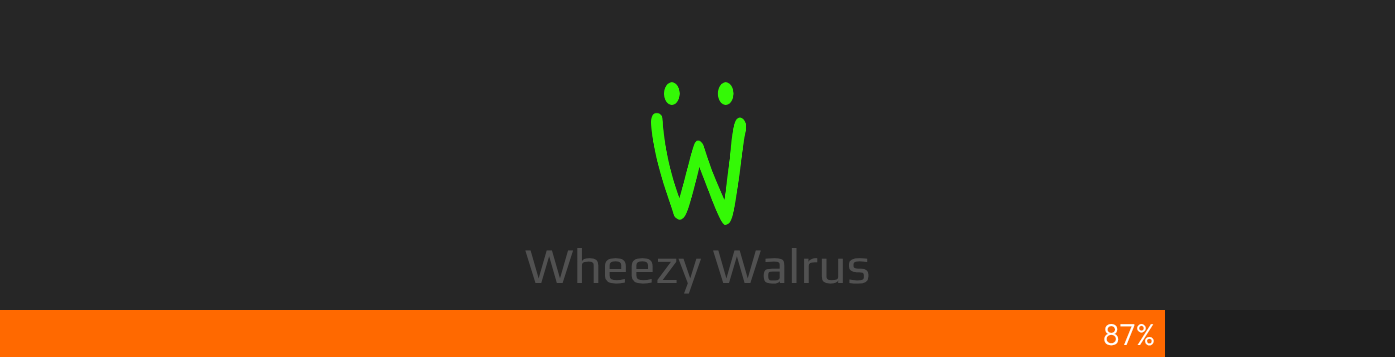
void draw(SkCanvas* canvas) {
	SkPaint fill;
	fill.setAntiAlias(true);
	auto makeFont = [&](const char* family, int weight, float size, bool italic = false) {
		SkFontStyle style(weight, SkFontStyle::kNormal_Width,
			italic ? SkFontStyle::kItalic_Slant : SkFontStyle::kUpright_Slant);
		SkFont result(fontMgr->matchFamilyStyle(family, style), size);
		result.setSubpixel(true);
		return result;
	};
	auto text = [&](const char* s, float x, float y, const SkFont& font) {
		canvas->drawString(s, x, y, font, fill);
	};
	auto box = [&](float l, float t, float r, float b) {
		canvas->drawRect(SkRect::MakeLTRB(l, t, r, b), fill);
	};
	auto picture = [&](const char* path, float l, float t, float r, float b) {
		auto image = SkImages::DeferredFromEncodedData(SkData::MakeFromFileName(path));
		canvas->drawImageRect(image, SkRect::MakeLTRB(l, t, r, b), SkSamplingOptions());
	};
	canvas->clear(0xFF262626);
	picture("image0.png", 651, 82, 746, 225);
	fill.setColor(0xFF1E1E1E);
	box(1165, 310, 1395, 357);
	fill.setColor(0xFFFF6900);
	box(0, 310, 1165, 357);
	auto font1 = makeFont("Play", 400, 50);
	fill.setColor(0xFF515151);
	text("Wheezy Walrus", 525, 283, font1);
	auto font2 = makeFont("Outfit", 100, 30);
	fill.setColor(0xFFFFFFFF);
	text("87%", 1103, 345, font2);
}
